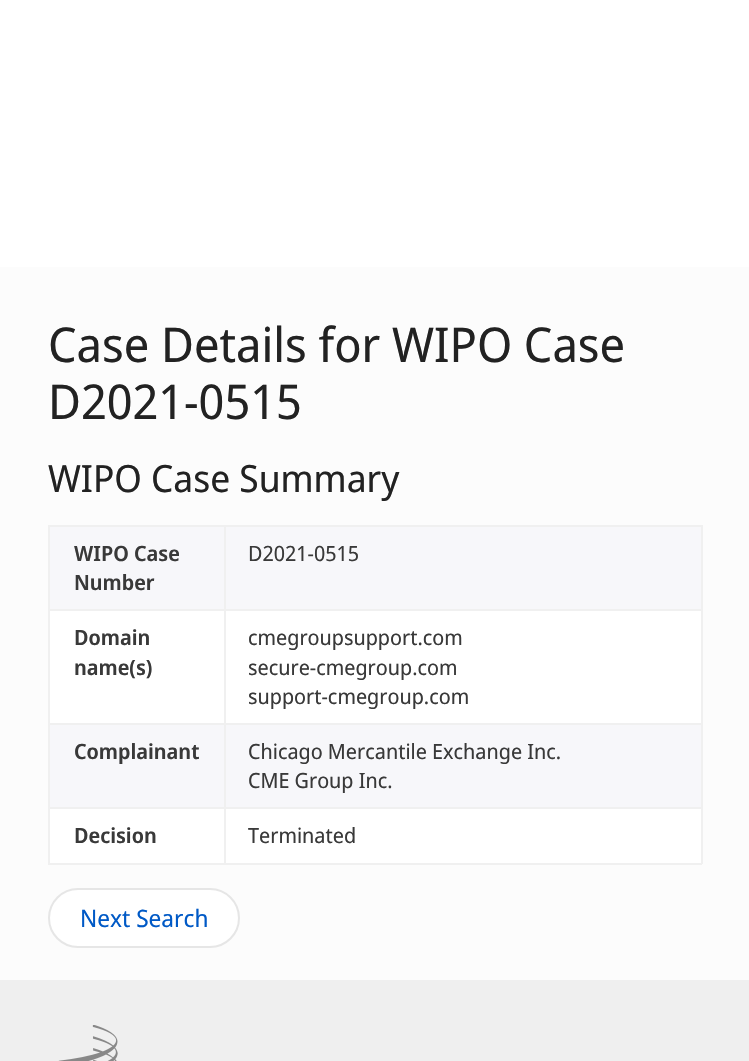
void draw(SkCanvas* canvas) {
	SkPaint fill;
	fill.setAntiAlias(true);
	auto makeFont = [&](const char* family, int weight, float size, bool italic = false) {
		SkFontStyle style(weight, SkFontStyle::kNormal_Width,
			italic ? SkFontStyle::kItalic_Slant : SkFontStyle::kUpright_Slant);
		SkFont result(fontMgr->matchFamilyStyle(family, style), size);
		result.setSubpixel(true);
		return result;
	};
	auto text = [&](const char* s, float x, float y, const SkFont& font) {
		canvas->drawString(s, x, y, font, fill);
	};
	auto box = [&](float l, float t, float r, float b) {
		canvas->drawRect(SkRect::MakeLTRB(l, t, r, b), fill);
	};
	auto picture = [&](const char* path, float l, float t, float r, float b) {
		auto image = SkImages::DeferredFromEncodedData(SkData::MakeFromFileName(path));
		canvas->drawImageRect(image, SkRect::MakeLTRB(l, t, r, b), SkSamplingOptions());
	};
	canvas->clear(0xFFFCFCFC);
	fill.setColor(0xFFFFFFFF);
	box(0, 0, 749, 267);
	box(50, 611, 701, 863);
	fill.setColor(0xFFF0F0F0);
	box(48, 525, 702, 527);
	box(701, 525, 703, 864);
	box(48, 863, 702, 865);
	box(48, 525, 50, 864);
	fill.setColor(0xFFF7F7FA);
	box(50, 527, 224, 609);
	box(226, 527, 701, 609);
	fill.setColor(0xFFF0F0F0);
	box(48, 609, 702, 611);
	box(48, 723, 702, 725);
	box(48, 807, 702, 809);
	box(224, 807, 226, 864);
	box(224, 723, 226, 809);
	box(224, 525, 226, 725);
	fill.setColor(0xFFF7F7FA);
	box(50, 725, 224, 807);
	box(226, 725, 701, 807);
	fill.setColor(0xFFFFFFFF);
	canvas->drawRoundRect(SkRect::MakeLTRB(49, 889, 239, 947), 29, 29, fill);
	fill.setStyle(SkPaint::kStroke_Style);
	fill.setStrokeWidth(2);
	fill.setColor(0xFFE6E6E6);
	canvas->drawRoundRect(SkRect::MakeLTRB(49, 889, 239, 947), 29, 29, fill);
	fill.setStyle(SkPaint::kFill_Style);
	fill.setColor(0xFFEFEFEF);
	box(0, 980, 749, 1061);
	picture("image0.png", 58, 1025, 118, 1061);
	auto font1 = makeFont("Noto Sans Display", 400, 48);
	fill.setColor(0xFF222222);
	text("Case Details for WIPO Case", 48, 362, font1);
	text("D2021-0515", 48, 419, font1);
	auto font2 = makeFont("Noto Sans Display", 400, 37.5f);
	text("WIPO Case Summary", 48, 492, font2);
	auto font3 = makeFont("Noto Sans Display", 600, 21);
	fill.setColor(0xFF393939);
	text("WIPO Case", 74, 561, font3);
	text("Number", 74, 590, font3);
	auto font4 = makeFont("Noto Sans Display", 400, 21);
	text("D2021-0515", 248, 561, font4);
	text("Domain", 74, 645, font3);
	text("name(s)", 74, 675, font3);
	text("cmegroupsupport.com", 248, 645, font4);
	text("secure-cmegroup.com", 248, 675, font4);
	text("support-cmegroup.com", 248, 704, font4);
	text("Complainant", 74, 759, font3);
	text("Chicago Mercantile Exchange Inc.", 248, 759, font4);
	text("CME Group Inc.", 248, 788, font4);
	text("Decision", 74, 843, font3);
	text("Terminated", 248, 843, font4);
	auto font5 = makeFont("Noto Sans Display", 400, 24);
	fill.setColor(0xFF0059C6);
	text("Next Search", 80, 927, font5);
}
